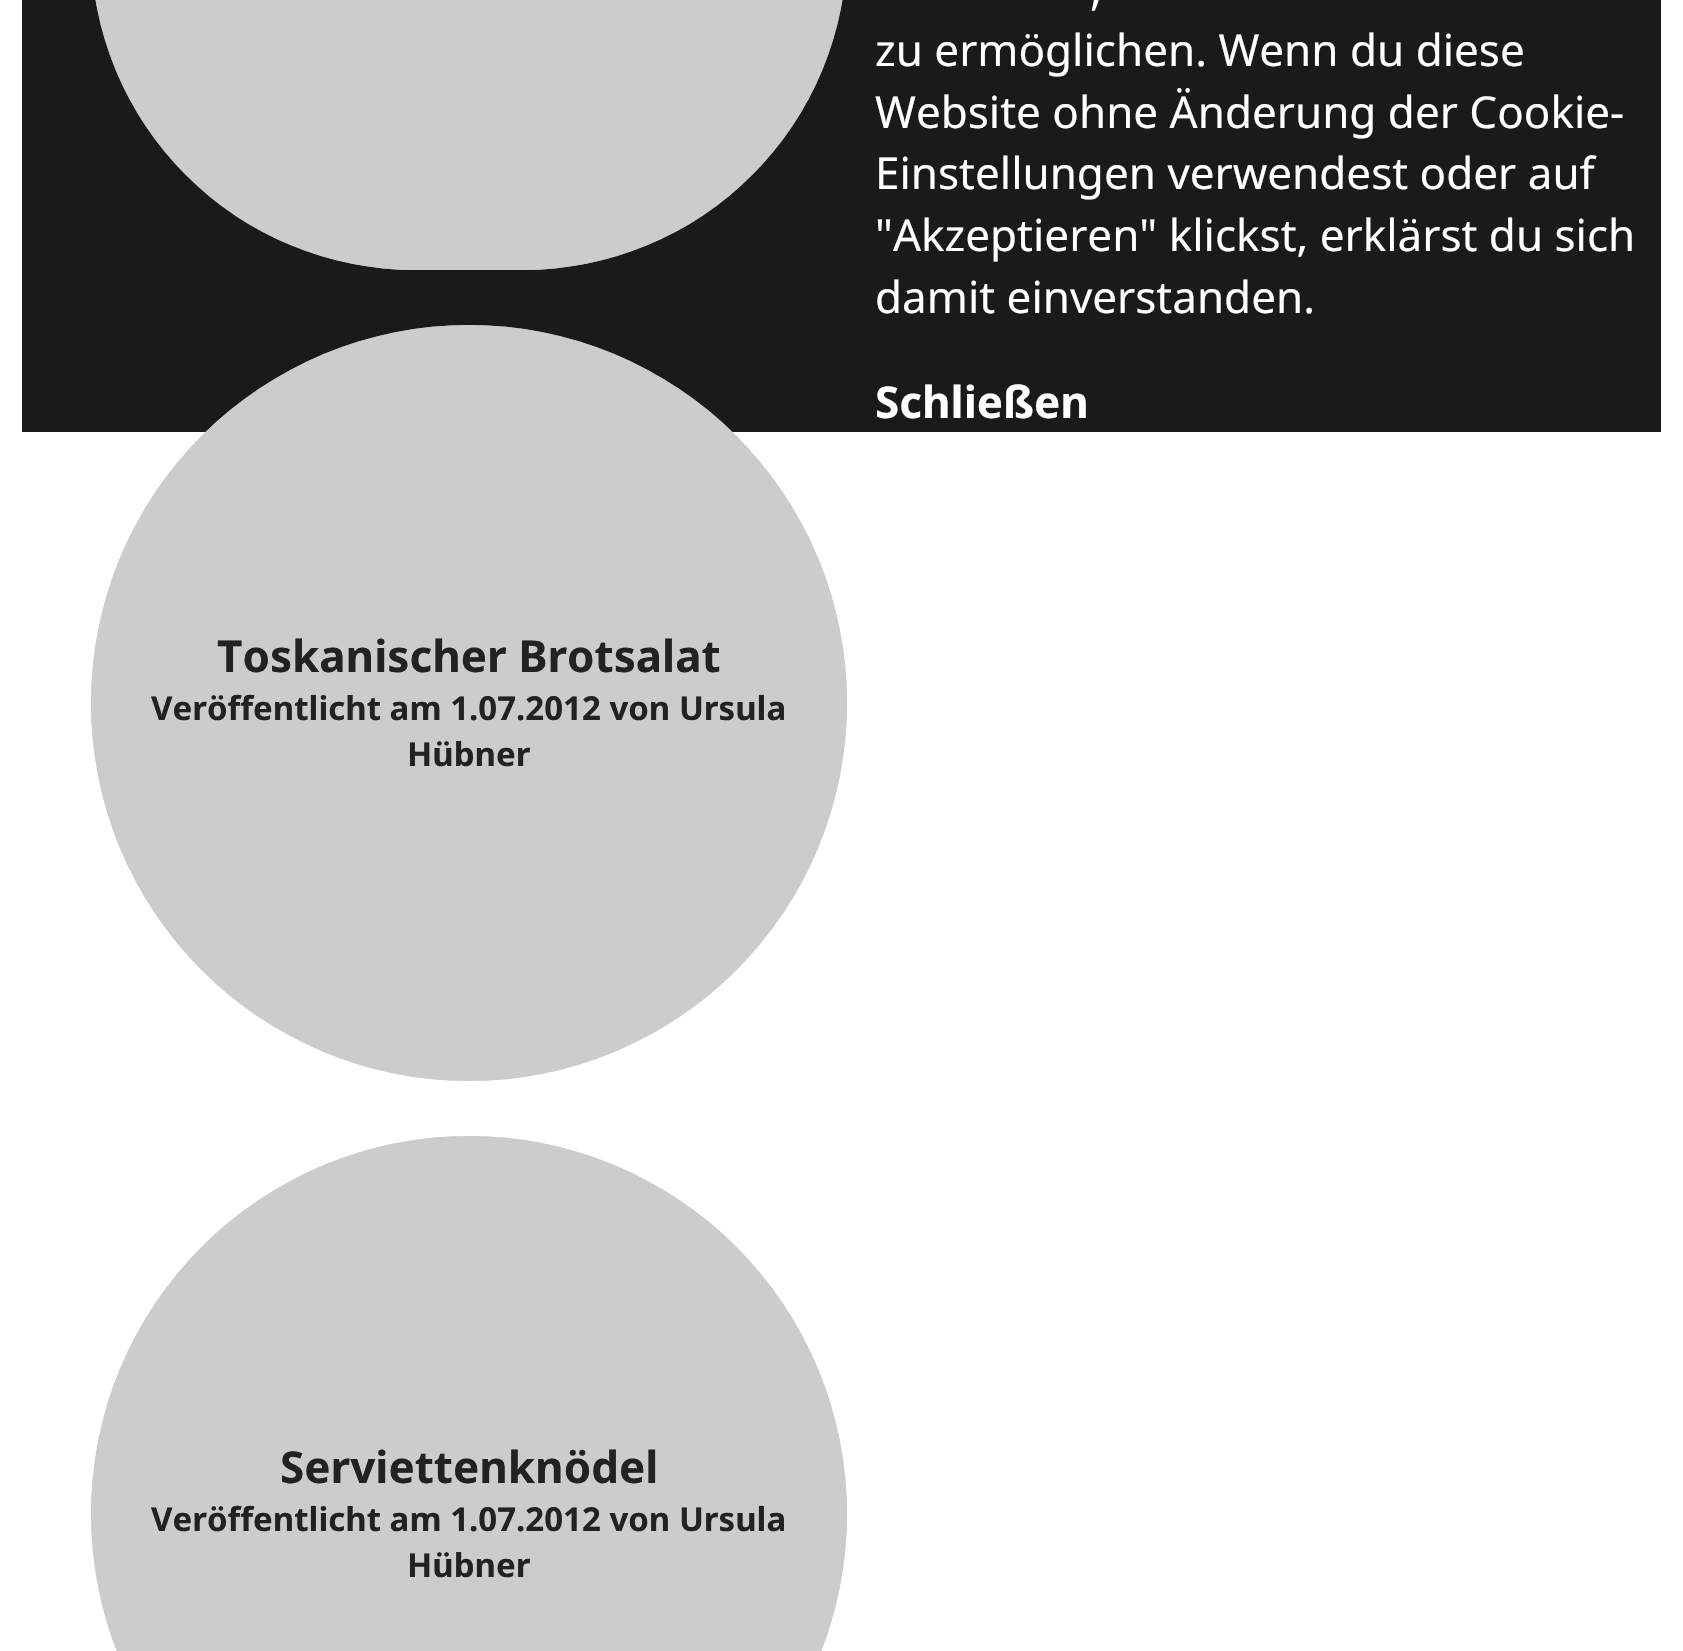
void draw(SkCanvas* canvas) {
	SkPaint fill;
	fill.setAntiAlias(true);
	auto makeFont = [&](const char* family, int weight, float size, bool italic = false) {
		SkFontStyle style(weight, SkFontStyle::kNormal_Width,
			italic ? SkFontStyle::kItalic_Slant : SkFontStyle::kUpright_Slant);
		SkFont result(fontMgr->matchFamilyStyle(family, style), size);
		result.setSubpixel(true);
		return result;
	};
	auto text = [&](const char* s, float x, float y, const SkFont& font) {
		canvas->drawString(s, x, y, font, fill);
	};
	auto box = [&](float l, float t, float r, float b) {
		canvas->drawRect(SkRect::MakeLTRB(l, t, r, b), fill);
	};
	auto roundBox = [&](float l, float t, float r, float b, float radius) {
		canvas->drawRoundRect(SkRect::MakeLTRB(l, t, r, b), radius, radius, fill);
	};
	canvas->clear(0xFFFFFFFF);
	fill.setColor(0xFF1A1A1A);
	box(22, 0, 1661, 432);
	fill.setColor(0xFFCCCCCC);
	roundBox(91, -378, 847, 270, 378);
	fill.setColor(0xCCCCCCCC);
	roundBox(91, -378, 847, 270, 378);
	fill.setColor(0xFFCCCCCC);
	canvas->drawCircle(469, 703, 378, fill);
	fill.setColor(0xCCCCCCCC);
	canvas->drawCircle(469, 703, 378, fill);
	fill.setColor(0xFFCCCCCC);
	canvas->drawCircle(469, 1514, 378, fill);
	fill.setColor(0xCCCCCCCC);
	canvas->drawCircle(469, 1514, 378, fill);
	auto font1 = makeFont("Noto Sans", 400, 44);
	fill.setColor(0xFFFFFFFF);
	text(",", 1090, 5, font1);
	text("zu ermöglichen. Wenn du diese", 875, 66, font1);
	text("Website ohne Änderung der Cookie-", 875, 128, font1);
	text("Einstellungen verwendest oder auf", 875, 189, font1);
	text("\"Akzeptieren\" klickst, erklärst du sich", 875, 251, font1);
	text("damit einverstanden.", 875, 313, font1);
	auto font2 = makeFont("Noto Sans", 700, 44);
	text("Schließen", 875, 418, font2);
	fill.setColor(0xFF222222);
	text("Toskanischer Brotsalat", 217, 672, font2);
	auto font3 = makeFont("Noto Sans", 700, 33);
	text("Veröffentlicht am 1.07.2012 von Ursula", 151, 720, font3);
	text("Hübner", 407, 766, font3);
	text("Serviettenknödel", 280, 1483, font2);
	text("Veröffentlicht am 1.07.2012 von Ursula", 151, 1531, font3);
	text("Hübner", 407, 1577, font3);
}
